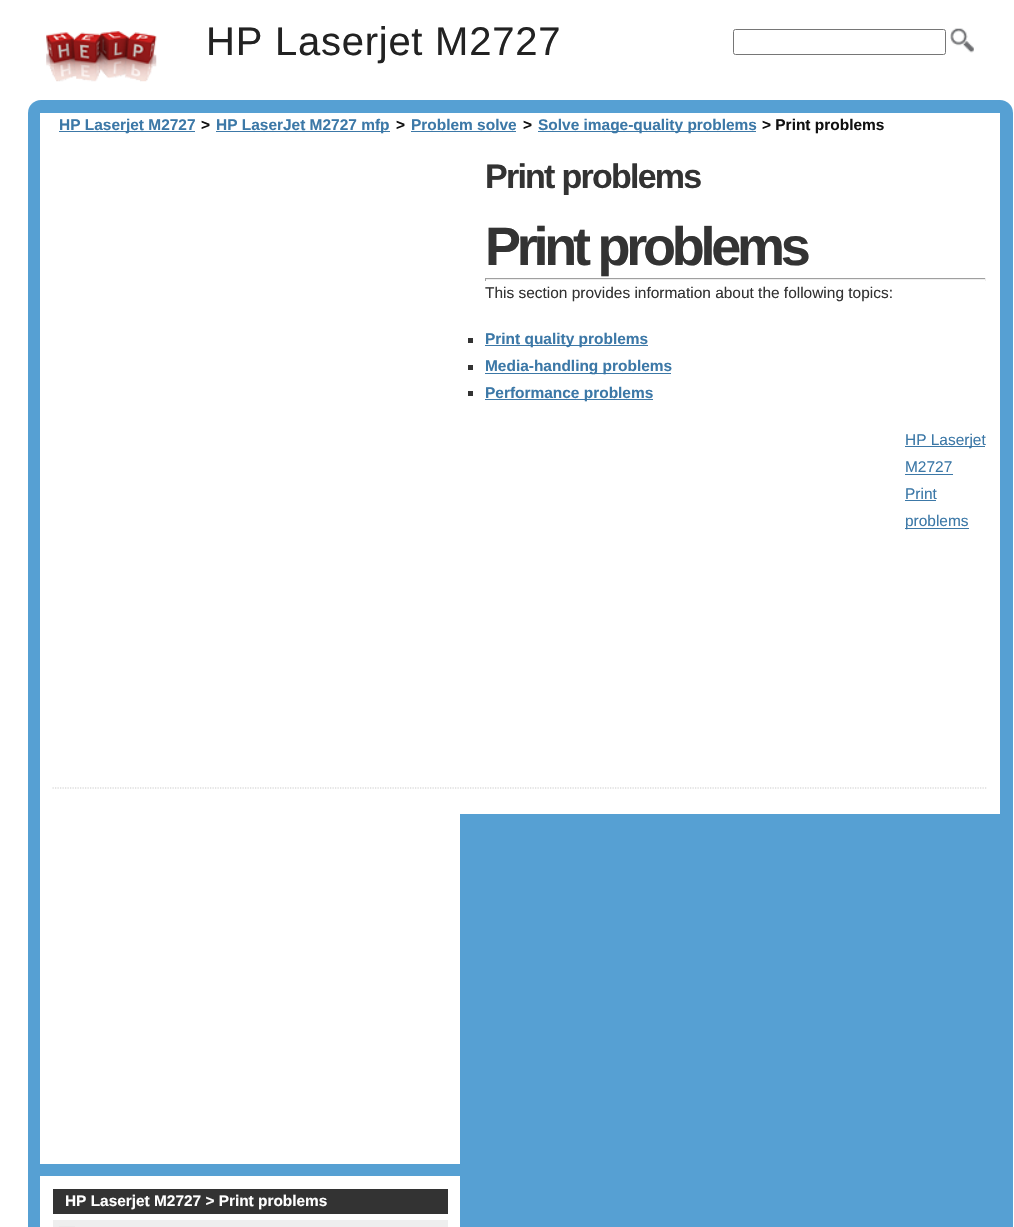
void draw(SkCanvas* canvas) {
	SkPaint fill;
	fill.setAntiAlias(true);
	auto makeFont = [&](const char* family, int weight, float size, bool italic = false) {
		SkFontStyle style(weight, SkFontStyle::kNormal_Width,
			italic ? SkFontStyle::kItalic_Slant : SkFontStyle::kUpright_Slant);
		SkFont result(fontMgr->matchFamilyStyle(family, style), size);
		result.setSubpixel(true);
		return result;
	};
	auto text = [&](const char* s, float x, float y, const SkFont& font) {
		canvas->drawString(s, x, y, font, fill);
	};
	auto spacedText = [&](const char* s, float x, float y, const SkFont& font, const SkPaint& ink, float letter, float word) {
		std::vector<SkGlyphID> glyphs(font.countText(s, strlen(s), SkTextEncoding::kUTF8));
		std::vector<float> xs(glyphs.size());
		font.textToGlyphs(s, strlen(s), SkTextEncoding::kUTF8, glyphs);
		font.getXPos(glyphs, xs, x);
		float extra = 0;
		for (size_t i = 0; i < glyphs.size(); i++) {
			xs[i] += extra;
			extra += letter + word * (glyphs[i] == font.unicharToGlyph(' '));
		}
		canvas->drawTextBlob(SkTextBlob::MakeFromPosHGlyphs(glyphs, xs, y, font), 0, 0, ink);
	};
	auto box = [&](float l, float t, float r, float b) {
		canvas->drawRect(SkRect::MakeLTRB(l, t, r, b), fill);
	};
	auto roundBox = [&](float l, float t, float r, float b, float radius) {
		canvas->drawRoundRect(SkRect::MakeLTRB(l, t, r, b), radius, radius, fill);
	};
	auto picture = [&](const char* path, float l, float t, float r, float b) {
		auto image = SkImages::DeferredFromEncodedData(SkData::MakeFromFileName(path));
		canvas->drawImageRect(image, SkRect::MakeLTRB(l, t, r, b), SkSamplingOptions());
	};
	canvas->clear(0xFFFFFFFF);
	picture("image0.png", 46, 31, 157, 82);
	fill.setStyle(SkPaint::kStroke_Style);
	fill.setStrokeWidth(1);
	fill.setColor(0xFF767676);
	canvas->drawRoundRect(SkRect::MakeLTRB(733.5f, 29.5f, 945.5f, 54.5f), 2, 2, fill);
	picture("image1.png", 950, 28, 974, 53);
	fill.setStyle(SkPaint::kFill_Style);
	fill.setColor(0xFF56A0D3);
	roundBox(28, 100, 1013, 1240, 13);
	fill.setColor(0xFFFFFFFF);
	box(40, 113, 1000, 814);
	fill.setColor(0xFF3C78A7);
	box(59, 131, 195, 132);
	box(216, 131, 390, 132);
	box(411, 131, 516, 132);
	box(538, 131, 756, 132);
	fill.setStyle(SkPaint::kStroke_Style);
	fill.setStrokeWidth(1.2f);
	fill.setColor(0xFFCCCCCC);
	fill.setPathEffect(SkDashPathEffect::Make({{1.25f, 1.25f}}, 0));
	canvas->drawPath(SkPathBuilder().moveTo(52.5f, 788).lineTo(987.5f, 788).detach(), fill);
	fill.setPathEffect(nullptr);
	fill.setStyle(SkPaint::kFill_Style);
	fill.setColor(0xFF9F9F9F);
	box(485, 278, 986, 279);
	fill.setColor(0xFFEEEEEE);
	box(985, 278, 986, 281);
	box(485, 279, 986, 280);
	fill.setColor(0xFF9F9F9F);
	box(485, 278, 486, 281);
	fill.setColor(0xFF333333);
	box(468, 338, 473, 343);
	fill.setColor(0xFF3C78A7);
	box(485, 345, 648, 346);
	fill.setColor(0xFF333333);
	box(468, 365, 473, 370);
	fill.setColor(0xFF3C78A7);
	box(485, 373, 671, 374);
	fill.setColor(0xFF333333);
	box(468, 391, 473, 396);
	fill.setColor(0xFF3C78A7);
	box(485, 399, 653, 400);
	box(905, 446, 985, 447);
	box(905, 474, 953, 475);
	box(905, 500, 936, 501);
	box(905, 528, 969, 529);
	fill.setColor(0xFFFFFFFF);
	box(40, 814, 460, 1164);
	box(40, 1176, 460, 1227);
	fill.setColor(0xFF333333);
	box(53, 1189, 448, 1214);
	fill.setColor(0xFFEEEEEE);
	box(53, 1220, 448, 1227);
	fill.setColor(0xFFE9E9E9);
	box(59, 1226, 75, 1227);
	auto font1 = makeFont("Liberation Sans", 400, 40);
	fill.setColor(0xFF222222);
	spacedText("HP Laserjet M2727", 206, 55, font1, fill, 0.75f, 0);
	auto font2 = makeFont("Liberation Sans", 700, 15.45f);
	fill.setColor(0xFF3C78A7);
	text("HP Laserjet M2727", 59, 130, font2);
	fill.setColor(0xFF111111);
	text(">", 201, 130, font2);
	fill.setColor(0xFF3C78A7);
	text("HP LaserJet M2727 mfp", 216, 130, font2);
	fill.setColor(0xFF111111);
	text(">", 396, 130, font2);
	fill.setColor(0xFF3C78A7);
	text("Problem solve", 411, 130, font2);
	fill.setColor(0xFF111111);
	text(">", 523, 130, font2);
	fill.setColor(0xFF3C78A7);
	text("Solve image-quality problems", 538, 130, font2);
	fill.setColor(0xFF111111);
	text("> Print problems", 762, 130, font2);
	auto font3 = makeFont("Liberation Sans", 700, 34);
	fill.setColor(0xFF333333);
	spacedText("Print problems", 485, 188, font3, fill, -1.75f, 0);
	auto font4 = makeFont("Liberation Sans", 700, 54);
	spacedText("Print problems", 485, 265, font4, fill, -4.25f, 0);
	auto font5 = makeFont("Liberation Sans", 400, 15.45f);
	text("This section provides information about the following topics:", 485, 298, font5);
	fill.setColor(0xFF3C78A7);
	text("Print quality problems", 485, 344, font2);
	text("Media-handling problems", 485, 371, font2);
	text("Performance problems", 485, 398, font2);
	text("HP Laserjet", 905, 445, font5);
	text("M2727", 905, 472, font5);
	text("Print", 905, 499, font5);
	text("problems", 905, 526, font5);
	auto font6 = makeFont("Liberation Sans", 700, 15.4f);
	fill.setColor(0xFFFFFFFF);
	text("HP Laserjet M2727 > Print problems", 65, 1206, font6);
}
